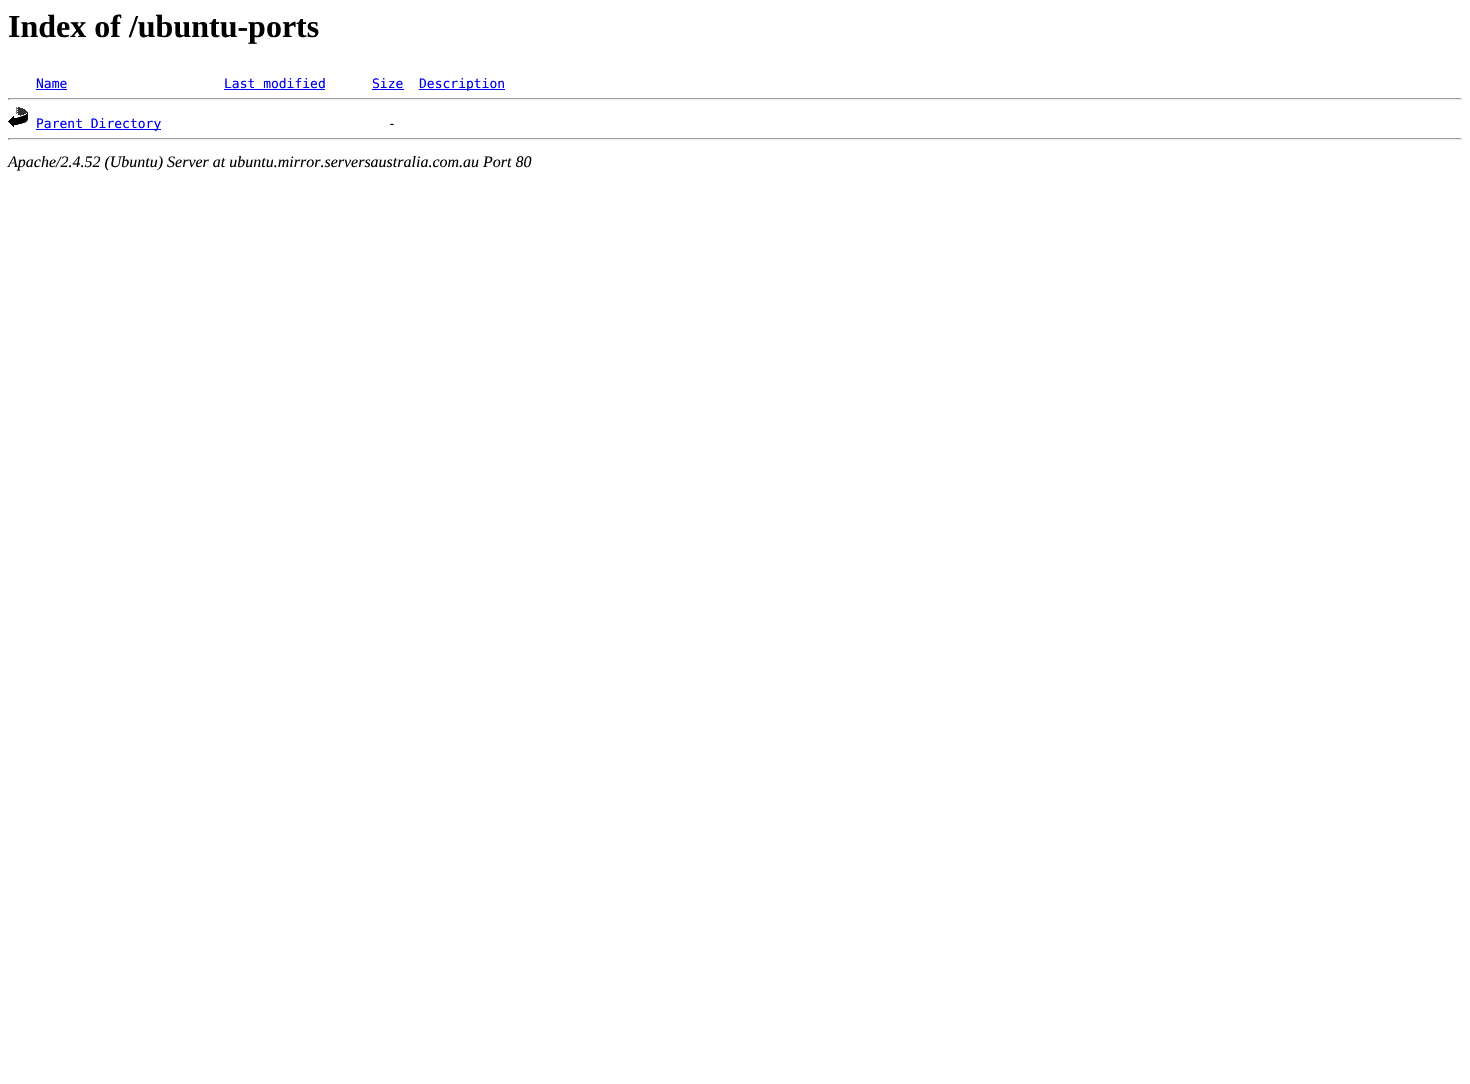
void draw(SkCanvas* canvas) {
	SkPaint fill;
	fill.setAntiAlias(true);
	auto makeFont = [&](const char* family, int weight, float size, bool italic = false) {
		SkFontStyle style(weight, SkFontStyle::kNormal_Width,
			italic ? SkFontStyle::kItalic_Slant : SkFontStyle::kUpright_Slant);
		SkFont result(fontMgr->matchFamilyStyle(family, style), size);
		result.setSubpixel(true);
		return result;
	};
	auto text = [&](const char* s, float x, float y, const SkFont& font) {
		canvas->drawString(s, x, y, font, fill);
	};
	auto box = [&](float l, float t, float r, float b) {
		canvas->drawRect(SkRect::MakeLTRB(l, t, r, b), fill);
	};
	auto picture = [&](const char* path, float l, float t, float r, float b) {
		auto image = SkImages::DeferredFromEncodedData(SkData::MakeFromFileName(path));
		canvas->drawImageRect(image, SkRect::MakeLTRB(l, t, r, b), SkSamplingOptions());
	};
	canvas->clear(0xFFFFFFFF);
	fill.setColor(0xFF0000EE);
	box(36, 89, 67, 90);
	box(224, 89, 325, 90);
	box(372, 89, 404, 90);
	box(419, 89, 505, 90);
	fill.setColor(0xFF9F9F9F);
	box(8, 98, 1462, 99);
	fill.setColor(0xFFEEEEEE);
	box(1461, 98, 1462, 100);
	box(8, 99, 1462, 100);
	fill.setColor(0xFF9F9F9F);
	box(8, 98, 9, 100);
	picture("image0.png", 8, 107, 28, 127);
	fill.setColor(0xFF0000EE);
	box(36, 129, 161, 130);
	fill.setColor(0xFF9F9F9F);
	box(8, 138, 1462, 139);
	fill.setColor(0xFFEEEEEE);
	box(1461, 138, 1462, 140);
	box(8, 139, 1462, 140);
	fill.setColor(0xFF9F9F9F);
	box(8, 138, 9, 140);
	auto font1 = makeFont("Liberation Serif", 700, 32);
	fill.setColor(0xFF000000);
	text("Index of /ubuntu-ports", 8, 37, font1);
	auto font2 = makeFont("DejaVu Sans Mono", 400, 13);
	fill.setColor(0xFF0000EE);
	text("Name", 36, 88, font2);
	text("Last modified", 224, 88, font2);
	text("Size", 372, 88, font2);
	text("Description", 419, 88, font2);
	text("Parent Directory", 36, 128, font2);
	fill.setColor(0xFF000000);
	text("-", 388, 128, font2);
	auto font3 = makeFont("Liberation Serif", 400, 16, true);
	text("Apache/2.4.52 (Ubuntu) Server at ubuntu.mirror.serversaustralia.com.au Port 80", 8, 167, font3);
}
